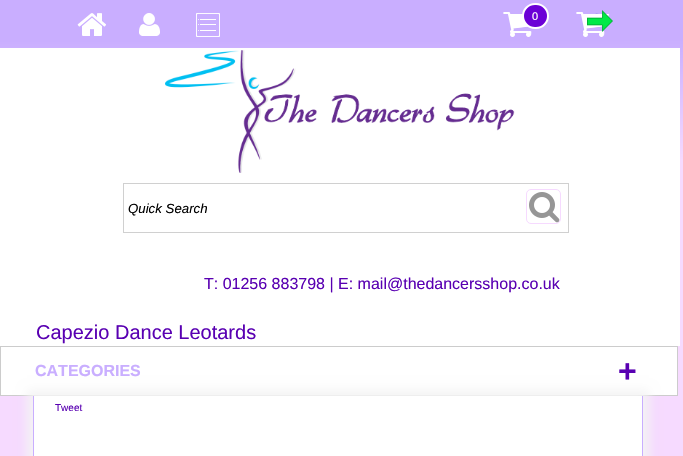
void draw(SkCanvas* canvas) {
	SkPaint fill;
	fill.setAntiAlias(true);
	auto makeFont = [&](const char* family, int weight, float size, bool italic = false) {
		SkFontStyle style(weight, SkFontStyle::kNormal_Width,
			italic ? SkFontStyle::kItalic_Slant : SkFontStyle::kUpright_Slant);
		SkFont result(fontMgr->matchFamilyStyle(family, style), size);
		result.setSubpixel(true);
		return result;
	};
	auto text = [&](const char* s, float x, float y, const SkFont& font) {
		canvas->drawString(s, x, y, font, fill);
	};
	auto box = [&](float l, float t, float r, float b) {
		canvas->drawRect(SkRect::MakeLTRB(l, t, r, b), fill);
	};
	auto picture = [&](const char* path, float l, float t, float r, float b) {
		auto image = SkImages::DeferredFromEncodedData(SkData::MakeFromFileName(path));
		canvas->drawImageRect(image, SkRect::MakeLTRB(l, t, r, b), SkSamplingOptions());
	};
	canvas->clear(0xFFFFFFFF);
	{
		const SkColor colors[] = {0xFFC9AEFF, 0xFFF6DAFF, 0xFFF6DAFF};
		const float stops[] = {0.01f, 0.04f, 1};
		const SkPoint ends[] = {{341, 0}, {342, 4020}};
		fill.setShader(SkGradientShader::MakeLinear(ends, colors, stops, 3, SkTileMode::kClamp));
		fill.setAlpha(255);
	}
	box(0, 0, 683, 456);
	picture("image0.png", 77, 13, 106, 36);
	picture("image1.png", 139, 13, 160, 36);
	picture("image2.png", 196, 13, 220, 37);
	picture("image3.png", 503, 12, 532, 37);
	fill.setShader(nullptr);
	fill.setColor(0xFF6B00D6);
	canvas->drawRoundRect(SkRect::MakeLTRB(523, 4, 548, 28), 12, 12, fill);
	fill.setStyle(SkPaint::kStroke_Style);
	fill.setStrokeWidth(2);
	fill.setColor(0xFFFFFFFF);
	canvas->drawRoundRect(SkRect::MakeLTRB(523, 4, 548, 28), 12, 12, fill);
	picture("image4.png", 576, 10, 613, 37);
	fill.setStyle(SkPaint::kFill_Style);
	box(0, 48, 680, 346);
	picture("image5.png", 165, 50, 515, 173);
	fill.setStyle(SkPaint::kStroke_Style);
	fill.setStrokeWidth(1);
	fill.setColor(0xFFD0D0D0);
	canvas->drawRect(SkRect::MakeLTRB(123.5f, 183.5f, 568.5f, 232.5f), fill);
	picture("image6.png", 529, 192, 560, 223);
	fill.setColor(0xFFF6DAFF);
	canvas->drawRoundRect(SkRect::MakeLTRB(526.5f, 189.5f, 560.5f, 223.5f), 4.5f, 4.5f, fill);
	fill.setStyle(SkPaint::kFill_Style);
	fill.setColor(0xFFFFFFFF);
	canvas->drawRect(SkRect::MakeLTRB(0.5f, 346.5f, 677.5f, 395.5f), fill);
	fill.setStyle(SkPaint::kStroke_Style);
	fill.setColor(0xFFCCCCCC);
	canvas->drawRect(SkRect::MakeLTRB(0.5f, 346.5f, 677.5f, 395.5f), fill);
	fill.setStyle(SkPaint::kFill_Style);
	fill.setColor(0xFFF4F4F4);
	fill.setMaskFilter(SkMaskFilter::MakeBlur(kNormal_SkBlurStyle, 5));
	canvas->drawRect(SkRect::MakeLTRB(27, 390, 649, 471), fill);
	fill.setMaskFilter(nullptr);
	fill.setColor(0xFFFFFFFF);
	box(34, 396, 642, 456);
	fill.setColor(0xFFC9AEFF);
	box(642, 396, 643, 456);
	box(33, 396, 34, 456);
	auto font1 = makeFont("Liberation Sans", 400, 11);
	fill.setColor(0xFFFFFFFF);
	text("0", 532, 20, font1);
	auto font2 = makeFont("Liberation Sans", 400, 13.25f, true);
	fill.setColor(0xFF000000);
	text("Quick Search", 128, 213, font2);
	auto font3 = makeFont("Liberation Sans", 400, 16);
	fill.setColor(0xFF5900B2);
	text("T: 01256 883798 | E: mail@thedancersshop.co.uk", 204, 289, font3);
	auto font4 = makeFont("Liberation Sans", 400, 20);
	text("Capezio Dance Leotards", 36, 339, font4);
	auto font5 = makeFont("Liberation Sans", 700, 16);
	fill.setColor(0xFFC9AEFF);
	text("CATEGORIES", 35, 376, font5);
	auto font6 = makeFont("Liberation Sans", 700, 32);
	fill.setColor(0xFF5900B2);
	text("+", 618, 382, font6);
	auto font7 = makeFont("Liberation Sans", 400, 10);
	text("Tweet", 55, 411, font7);
}
